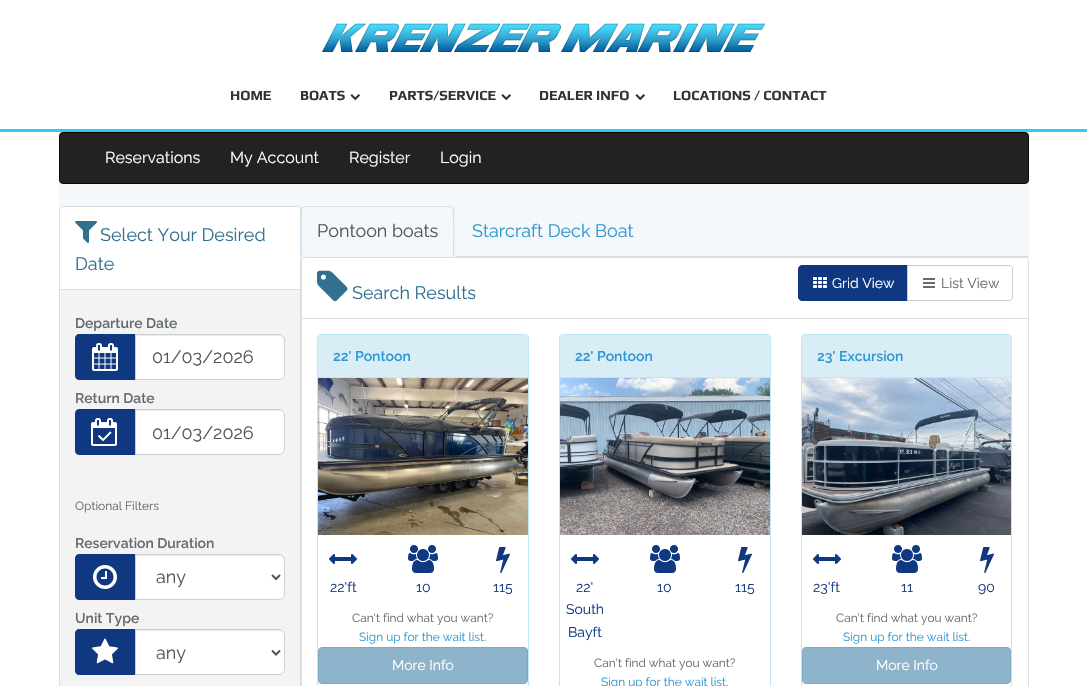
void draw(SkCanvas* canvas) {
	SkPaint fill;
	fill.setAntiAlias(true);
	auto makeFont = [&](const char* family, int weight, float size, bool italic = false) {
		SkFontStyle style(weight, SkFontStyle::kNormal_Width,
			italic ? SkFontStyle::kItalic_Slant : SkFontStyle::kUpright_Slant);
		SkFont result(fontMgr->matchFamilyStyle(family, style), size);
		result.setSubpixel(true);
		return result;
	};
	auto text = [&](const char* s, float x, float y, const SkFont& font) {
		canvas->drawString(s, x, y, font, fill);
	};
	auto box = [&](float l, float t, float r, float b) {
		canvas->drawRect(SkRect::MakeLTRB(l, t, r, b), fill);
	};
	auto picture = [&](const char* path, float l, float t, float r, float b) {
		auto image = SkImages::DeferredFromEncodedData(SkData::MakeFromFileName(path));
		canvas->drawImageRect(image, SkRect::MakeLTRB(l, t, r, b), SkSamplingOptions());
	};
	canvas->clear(0xFFFFFFFF);
	fill.setColor(0xFF2BD0F0);
	box(0, 129, 1087, 132);
	picture("image0.png", 322, 23, 765, 52);
	picture("image1.png", 350, 94, 360, 101);
	picture("image1.png", 501, 94, 511, 101);
	picture("image1.png", 635, 94, 645, 101);
	fill.setColor(0xFFF5F8FA);
	box(59, 132, 1029, 261);
	fill.setColor(0xFF222222);
	canvas->drawRoundRect(SkRect::MakeLTRB(59.5f, 132.5f, 1028.5f, 183.5f), 3.5f, 3.5f, fill);
	fill.setStyle(SkPaint::kStroke_Style);
	fill.setStrokeWidth(1);
	fill.setColor(0xFF090909);
	canvas->drawRoundRect(SkRect::MakeLTRB(59.5f, 132.5f, 1028.5f, 183.5f), 3.5f, 3.5f, fill);
	fill.setStyle(SkPaint::kFill_Style);
	fill.setColor(0xFFF3F3F3);
	canvas->drawRoundRect(SkRect::MakeLTRB(59.5f, 206.5f, 300.5f, 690.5f), 3.5f, 3.5f, fill);
	fill.setStyle(SkPaint::kStroke_Style);
	fill.setColor(0xFFD3E0E9);
	canvas->drawRoundRect(SkRect::MakeLTRB(59.5f, 206.5f, 300.5f, 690.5f), 3.5f, 3.5f, fill);
	fill.setStyle(SkPaint::kFill_Style);
	fill.setColor(0xFFFFFFFF);
	canvas->drawPath(SkPathBuilder().moveTo(63, 207).lineTo(297, 207).cubicTo(298.5f, 207, 300, 208.5f, 300, 210).lineTo(300, 290).lineTo(60, 290).lineTo(60, 210).cubicTo(60, 208.5f, 61.5f, 207, 63, 207).close().detach(), fill);
	fill.setColor(0xFFD3E0E9);
	box(60, 289, 300, 290);
	picture("image2.png", 75, 221, 97, 243);
	fill.setColor(0xFF0F3880);
	canvas->drawPath(SkPathBuilder().moveTo(79, 334).lineTo(135, 334).lineTo(135, 380).lineTo(79, 380).cubicTo(77, 380, 75, 378, 75, 376).lineTo(75, 338).cubicTo(75, 336, 77, 334, 79, 334).close().detach(), fill);
	picture("image3.png", 92, 343, 118, 371);
	fill.setColor(0xFFFFFFFF);
	canvas->drawPath(SkPathBuilder().moveTo(135, 334).lineTo(279, 334).cubicTo(282.5f, 334, 285, 336.5f, 285, 340).lineTo(285, 374).cubicTo(285, 377.5f, 282.5f, 380, 279, 380).lineTo(135, 380).close().detach(), fill);
	fill.setColor(0xFFECECEC);
	canvas->drawPath(SkPathBuilder().moveTo(136, 336).lineTo(279, 336).cubicTo(282, 336, 284, 338, 284, 341).lineTo(284, 340).cubicTo(284, 337, 282, 335, 279, 335).lineTo(136, 335).close().detach(), fill);
	fill.setStyle(SkPaint::kStroke_Style);
	fill.setColor(0xFFCCD0D2);
	canvas->drawPath(SkPathBuilder().moveTo(135.5f, 334.5f).lineTo(279, 334.5f).cubicTo(282, 334.5f, 284.5f, 337, 284.5f, 340).lineTo(284.5f, 374).cubicTo(284.5f, 377, 282, 379.5f, 279, 379.5f).lineTo(135.5f, 379.5f).close().detach(), fill);
	fill.setStyle(SkPaint::kFill_Style);
	fill.setColor(0xFF0F3880);
	canvas->drawPath(SkPathBuilder().moveTo(79, 409).lineTo(135, 409).lineTo(135, 455).lineTo(79, 455).cubicTo(77, 455, 75, 453, 75, 451).lineTo(75, 413).cubicTo(75, 411, 77, 409, 79, 409).close().detach(), fill);
	picture("image4.png", 91, 418, 117, 446);
	fill.setColor(0xFFFFFFFF);
	canvas->drawPath(SkPathBuilder().moveTo(135, 409).lineTo(279, 409).cubicTo(282.5f, 409, 285, 411.5f, 285, 415).lineTo(285, 449).cubicTo(285, 452.5f, 282.5f, 455, 279, 455).lineTo(135, 455).close().detach(), fill);
	fill.setColor(0xFFECECEC);
	canvas->drawPath(SkPathBuilder().moveTo(136, 411).lineTo(279, 411).cubicTo(282, 411, 284, 413, 284, 416).lineTo(284, 415).cubicTo(284, 412, 282, 410, 279, 410).lineTo(136, 410).close().detach(), fill);
	fill.setStyle(SkPaint::kStroke_Style);
	fill.setColor(0xFFCCD0D2);
	canvas->drawPath(SkPathBuilder().moveTo(135.5f, 409.5f).lineTo(279, 409.5f).cubicTo(282, 409.5f, 284.5f, 412, 284.5f, 415).lineTo(284.5f, 449).cubicTo(284.5f, 452, 282, 454.5f, 279, 454.5f).lineTo(135.5f, 454.5f).close().detach(), fill);
	fill.setStyle(SkPaint::kFill_Style);
	fill.setColor(0xFFEEEEEE);
	box(75, 477, 285, 478);
	fill.setColor(0xFF0F3880);
	canvas->drawPath(SkPathBuilder().moveTo(79, 554).lineTo(135, 554).lineTo(135, 600).lineTo(79, 600).cubicTo(77, 600, 75, 598, 75, 596).lineTo(75, 558).cubicTo(75, 556, 77, 554, 79, 554).close().detach(), fill);
	picture("image5.png", 93, 565, 117, 589);
	fill.setColor(0xFFFFFFFF);
	canvas->drawPath(SkPathBuilder().moveTo(135, 554).lineTo(279, 554).cubicTo(282.5f, 554, 285, 556.5f, 285, 560).lineTo(285, 594).cubicTo(285, 597.5f, 282.5f, 600, 279, 600).lineTo(135, 600).close().detach(), fill);
	fill.setColor(0xFFECECEC);
	canvas->drawPath(SkPathBuilder().moveTo(136, 556).lineTo(279, 556).cubicTo(282, 556, 284, 558, 284, 561).lineTo(284, 560).cubicTo(284, 557, 282, 555, 279, 555).lineTo(136, 555).close().detach(), fill);
	fill.setStyle(SkPaint::kStroke_Style);
	fill.setColor(0xFFCCD0D2);
	canvas->drawPath(SkPathBuilder().moveTo(135.5f, 554.5f).lineTo(279, 554.5f).cubicTo(282, 554.5f, 284.5f, 557, 284.5f, 560).lineTo(284.5f, 594).cubicTo(284.5f, 597, 282, 599.5f, 279, 599.5f).lineTo(135.5f, 599.5f).close().detach(), fill);
	fill.setStrokeWidth(2);
	fill.setColor(0xFF555555);
	canvas->drawPath(SkPathBuilder().moveTo(272, 575).lineTo(276, 579).lineTo(280, 575).detach(), fill);
	fill.setStyle(SkPaint::kFill_Style);
	fill.setColor(0xFF0F3880);
	canvas->drawPath(SkPathBuilder().moveTo(79, 629).lineTo(135, 629).lineTo(135, 675).lineTo(79, 675).cubicTo(77, 675, 75, 673, 75, 671).lineTo(75, 633).cubicTo(75, 631, 77, 629, 79, 629).close().detach(), fill);
	picture("image6.png", 92, 638, 118, 664);
	fill.setColor(0xFFFFFFFF);
	canvas->drawPath(SkPathBuilder().moveTo(135, 629).lineTo(279, 629).cubicTo(282.5f, 629, 285, 631.5f, 285, 635).lineTo(285, 669).cubicTo(285, 672.5f, 282.5f, 675, 279, 675).lineTo(135, 675).close().detach(), fill);
	fill.setColor(0xFFECECEC);
	canvas->drawPath(SkPathBuilder().moveTo(136, 631).lineTo(279, 631).cubicTo(282, 631, 284, 633, 284, 636).lineTo(284, 635).cubicTo(284, 632, 282, 630, 279, 630).lineTo(136, 630).close().detach(), fill);
	fill.setStyle(SkPaint::kStroke_Style);
	fill.setStrokeWidth(1);
	fill.setColor(0xFFCCD0D2);
	canvas->drawPath(SkPathBuilder().moveTo(135.5f, 629.5f).lineTo(279, 629.5f).cubicTo(282, 629.5f, 284.5f, 632, 284.5f, 635).lineTo(284.5f, 669).cubicTo(284.5f, 672, 282, 674.5f, 279, 674.5f).lineTo(135.5f, 674.5f).close().detach(), fill);
	fill.setStrokeWidth(2);
	fill.setColor(0xFF555555);
	canvas->drawPath(SkPathBuilder().moveTo(272, 650.5f).lineTo(276, 654.5f).lineTo(280, 650.5f).detach(), fill);
	fill.setStyle(SkPaint::kFill_Style);
	fill.setColor(0xFFDDDDDD);
	box(456, 256, 1029, 257);
	fill.setColor(0xFFF3F3F3);
	box(301, 206, 456, 257);
	fill.setColor(0xFFF5F8FA);
	canvas->drawPath(SkPathBuilder().moveTo(305, 206).lineTo(450, 206).cubicTo(452, 206, 454, 208, 454, 210).lineTo(454, 257).lineTo(301, 257).lineTo(301, 210).cubicTo(301, 208, 303, 206, 305, 206).close().detach(), fill);
	fill.setColor(0xFFDDDDDD);
	canvas->drawPath(SkPathBuilder().moveTo(305, 206).lineTo(302, 207).lineTo(303, 208).lineTo(305, 207).lineTo(450, 207).lineTo(452, 208).lineTo(453, 207).lineTo(450, 206).close().detach(), fill);
	canvas->drawPath(SkPathBuilder().moveTo(454, 257).lineTo(454, 209).lineTo(453, 207).lineTo(452, 208).cubicTo(454, 210, 453, 250, 453, 256).close().detach(), fill);
	canvas->drawPath(SkPathBuilder().moveTo(301, 257).lineTo(302, 256).cubicTo(302, 250, 301, 210, 303, 208).lineTo(302, 207).lineTo(301, 210).close().detach(), fill);
	fill.setColor(0xFFFFFFFF);
	canvas->drawRoundRect(SkRect::MakeLTRB(301.5f, 257.5f, 1028.5f, 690.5f), 3.5f, 3.5f, fill);
	fill.setStyle(SkPaint::kStroke_Style);
	fill.setStrokeWidth(1);
	fill.setColor(0xFFD3E0E9);
	canvas->drawRoundRect(SkRect::MakeLTRB(301.5f, 257.5f, 1028.5f, 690.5f), 3.5f, 3.5f, fill);
	fill.setStyle(SkPaint::kFill_Style);
	fill.setColor(0xFFFFFFFF);
	canvas->drawPath(SkPathBuilder().moveTo(305, 258).lineTo(1025, 258).cubicTo(1026.5f, 258, 1028, 259.5f, 1028, 261).lineTo(1028, 319).lineTo(302, 319).lineTo(302, 261).cubicTo(302, 259.5f, 303.5f, 258, 305, 258).close().detach(), fill);
	fill.setColor(0xFFD3E0E9);
	box(302, 318, 1028, 319);
	fill.setColor(0xFF0F3880);
	canvas->drawPath(SkPathBuilder().moveTo(802, 265.5f).lineTo(907.5f, 265.5f).lineTo(907.5f, 300.5f).lineTo(802, 300.5f).cubicTo(800, 300.5f, 798.5f, 299, 798.5f, 297).lineTo(798.5f, 269).cubicTo(798.5f, 267, 800, 265.5f, 802, 265.5f).close().detach(), fill);
	fill.setStyle(SkPaint::kStroke_Style);
	canvas->drawPath(SkPathBuilder().moveTo(802, 265.5f).lineTo(907.5f, 265.5f).lineTo(907.5f, 300.5f).lineTo(802, 300.5f).cubicTo(800, 300.5f, 798.5f, 299, 798.5f, 297).lineTo(798.5f, 269).cubicTo(798.5f, 267, 800, 265.5f, 802, 265.5f).close().detach(), fill);
	picture("image7.png", 813, 277, 827, 288);
	fill.setStyle(SkPaint::kFill_Style);
	fill.setColor(0xFFFFFFFF);
	canvas->drawPath(SkPathBuilder().moveTo(907.5f, 265.5f).lineTo(1009, 265.5f).cubicTo(1011, 265.5f, 1012.5f, 267, 1012.5f, 269).lineTo(1012.5f, 297).cubicTo(1012.5f, 299, 1011, 300.5f, 1009, 300.5f).lineTo(907.5f, 300.5f).close().detach(), fill);
	fill.setStyle(SkPaint::kStroke_Style);
	fill.setColor(0xFFCCCCCC);
	canvas->drawPath(SkPathBuilder().moveTo(907.5f, 265.5f).lineTo(1009, 265.5f).cubicTo(1011, 265.5f, 1012.5f, 267, 1012.5f, 269).lineTo(1012.5f, 297).cubicTo(1012.5f, 299, 1011, 300.5f, 1009, 300.5f).lineTo(907.5f, 300.5f).close().detach(), fill);
	picture("image8.png", 923, 278, 935, 288);
	picture("image9.png", 317, 270, 348, 302);
	fill.setColor(0xFFBCE8F1);
	canvas->drawRoundRect(SkRect::MakeLTRB(317.5f, 334.5f, 528.5f, 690.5f), 3.5f, 3.5f, fill);
	fill.setStyle(SkPaint::kFill_Style);
	fill.setColor(0xFFD9EDF7);
	canvas->drawPath(SkPathBuilder().moveTo(321, 335).lineTo(525, 335).cubicTo(526.5f, 335, 528, 336.5f, 528, 338).lineTo(528, 378).lineTo(318, 378).lineTo(318, 338).cubicTo(318, 336.5f, 319.5f, 335, 321, 335).close().detach(), fill);
	fill.setColor(0xFFBCE8F1);
	box(318, 377, 528, 378);
	picture("image10.png", 318, 378, 528, 535);
	picture("image11.png", 329, 554, 357, 564);
	picture("image12.png", 408, 545, 438, 573);
	picture("image13.png", 496, 547, 510, 573);
	fill.setColor(0xFF8EB4CB);
	canvas->drawRoundRect(SkRect::MakeLTRB(318.5f, 647.5f, 527.5f, 683.5f), 3.5f, 3.5f, fill);
	fill.setStyle(SkPaint::kStroke_Style);
	fill.setColor(0xFF7DA8C3);
	canvas->drawRoundRect(SkRect::MakeLTRB(318.5f, 647.5f, 527.5f, 683.5f), 3.5f, 3.5f, fill);
	fill.setColor(0xFFBCE8F1);
	canvas->drawRoundRect(SkRect::MakeLTRB(559.5f, 334.5f, 770.5f, 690.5f), 3.5f, 3.5f, fill);
	fill.setStyle(SkPaint::kFill_Style);
	fill.setColor(0xFFD9EDF7);
	canvas->drawPath(SkPathBuilder().moveTo(563, 335).lineTo(767, 335).cubicTo(768.5f, 335, 770, 336.5f, 770, 338).lineTo(770, 378).lineTo(560, 378).lineTo(560, 338).cubicTo(560, 336.5f, 561.5f, 335, 563, 335).close().detach(), fill);
	fill.setColor(0xFFBCE8F1);
	box(560, 377, 770, 378);
	picture("image14.png", 560, 378, 770, 535);
	picture("image11.png", 571, 554, 599, 564);
	picture("image12.png", 650, 545, 680, 573);
	picture("image13.png", 738, 547, 752, 573);
	fill.setStyle(SkPaint::kStroke_Style);
	canvas->drawRoundRect(SkRect::MakeLTRB(801.5f, 334.5f, 1011.5f, 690.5f), 3.5f, 3.5f, fill);
	fill.setStyle(SkPaint::kFill_Style);
	fill.setColor(0xFFD9EDF7);
	canvas->drawPath(SkPathBuilder().moveTo(805, 335).lineTo(1008, 335).cubicTo(1009.5f, 335, 1011, 336.5f, 1011, 338).lineTo(1011, 378).lineTo(802, 378).lineTo(802, 338).cubicTo(802, 336.5f, 803.5f, 335, 805, 335).close().detach(), fill);
	fill.setColor(0xFFBCE8F1);
	box(802, 377, 1011, 378);
	picture("image15.png", 802, 378, 1011, 535);
	picture("image11.png", 813, 554, 841, 564);
	picture("image12.png", 892, 545, 922, 573);
	picture("image13.png", 980, 547, 994, 573);
	fill.setColor(0xFF8EB4CB);
	canvas->drawRoundRect(SkRect::MakeLTRB(802.5f, 647.5f, 1010.5f, 683.5f), 3.5f, 3.5f, fill);
	fill.setStyle(SkPaint::kStroke_Style);
	fill.setColor(0xFF7DA8C3);
	canvas->drawRoundRect(SkRect::MakeLTRB(802.5f, 647.5f, 1010.5f, 683.5f), 3.5f, 3.5f, fill);
	auto font1 = makeFont("Play", 700, 14);
	fill.setStyle(SkPaint::kFill_Style);
	fill.setColor(0xFF333333);
	text("HOME", 230, 100, font1);
	text("BOATS", 300, 100, font1);
	text("PARTS/SERVICE", 389, 100, font1);
	text("DEALER INFO", 539, 100, font1);
	text("LOCATIONS / CONTACT", 673, 100, font1);
	auto font2 = makeFont("Raleway", 400, 16);
	fill.setColor(0xFFFFFFFF);
	text("Reservations", 105, 163, font2);
	text("My Account", 230, 163, font2);
	text("Register", 349, 163, font2);
	text("Login", 440, 163, font2);
	auto font3 = makeFont("Raleway", 400, 18);
	fill.setColor(0xFF31708F);
	text("Select Your Desired", 100, 241, font3);
	text("Date", 75, 270, font3);
	auto font4 = makeFont("Raleway", 600, 14);
	fill.setColor(0xFF636B6F);
	text("Departure Date", 75, 328, font4);
	fill.setColor(0xFF555555);
	text("01/03/2026", 152, 363, font3);
	fill.setColor(0xFF636B6F);
	text("Return Date", 75, 403, font4);
	fill.setColor(0xFF555555);
	text("01/03/2026", 152, 439, font3);
	auto font5 = makeFont("Raleway", 400, 12);
	fill.setColor(0xFF636B6F);
	text("Optional Filters", 75, 510, font5);
	text("Reservation Duration", 75, 548, font4);
	fill.setColor(0xFF555555);
	text("any", 156, 583, font3);
	fill.setColor(0xFF636B6F);
	text("Unit Type", 75, 623, font4);
	fill.setColor(0xFF555555);
	text("any", 156, 659, font3);
	text("Pontoon boats", 317, 237, font3);
	fill.setColor(0xFF3097D1);
	text("Starcraft Deck Boat", 472, 237, font3);
	auto font6 = makeFont("Raleway", 400, 14);
	fill.setColor(0xFFFFFFFF);
	text("Grid View", 832, 288, font6);
	fill.setColor(0xFF636B6F);
	text("List View", 941, 288, font6);
	fill.setColor(0xFF31708F);
	text("Search Results", 352, 299, font3);
	fill.setColor(0xFF3097D1);
	text("22' Pontoon", 333, 361, font4);
	fill.setColor(0xFF0F3880);
	text("22'ft", 330, 592, font6);
	text("10", 416, 592, font6);
	text("115", 493, 592, font6);
	auto font7 = makeFont("Raleway", 400, 11.9f);
	fill.setColor(0xFF636B6F);
	text("Can't find what you want?", 352, 622, font7);
	fill.setColor(0xFF3097D1);
	text("Sign up for the wait list.", 359, 641, font7);
	fill.setColor(0xFFFFFFFF);
	text("More Info", 392, 670, font6);
	fill.setColor(0xFF3097D1);
	text("22' Pontoon", 575, 361, font4);
	fill.setColor(0xFF0F3880);
	text("22'", 576, 592, font6);
	text("South", 566, 614, font6);
	text("Bayft", 568, 637, font6);
	text("10", 657, 592, font6);
	text("115", 735, 592, font6);
	fill.setColor(0xFF636B6F);
	text("Can't find what you want?", 594, 667, font7);
	fill.setColor(0xFF3097D1);
	text("Sign up for the wait list.", 601, 686, font7);
	text("23' Excursion", 817, 361, font4);
	fill.setColor(0xFF0F3880);
	text("23'ft", 813, 592, font6);
	text("11", 901, 592, font6);
	text("90", 978, 592, font6);
	fill.setColor(0xFF636B6F);
	text("Can't find what you want?", 836, 622, font7);
	fill.setColor(0xFF3097D1);
	text("Sign up for the wait list.", 843, 641, font7);
	fill.setColor(0xFFFFFFFF);
	text("More Info", 876, 670, font6);
}
